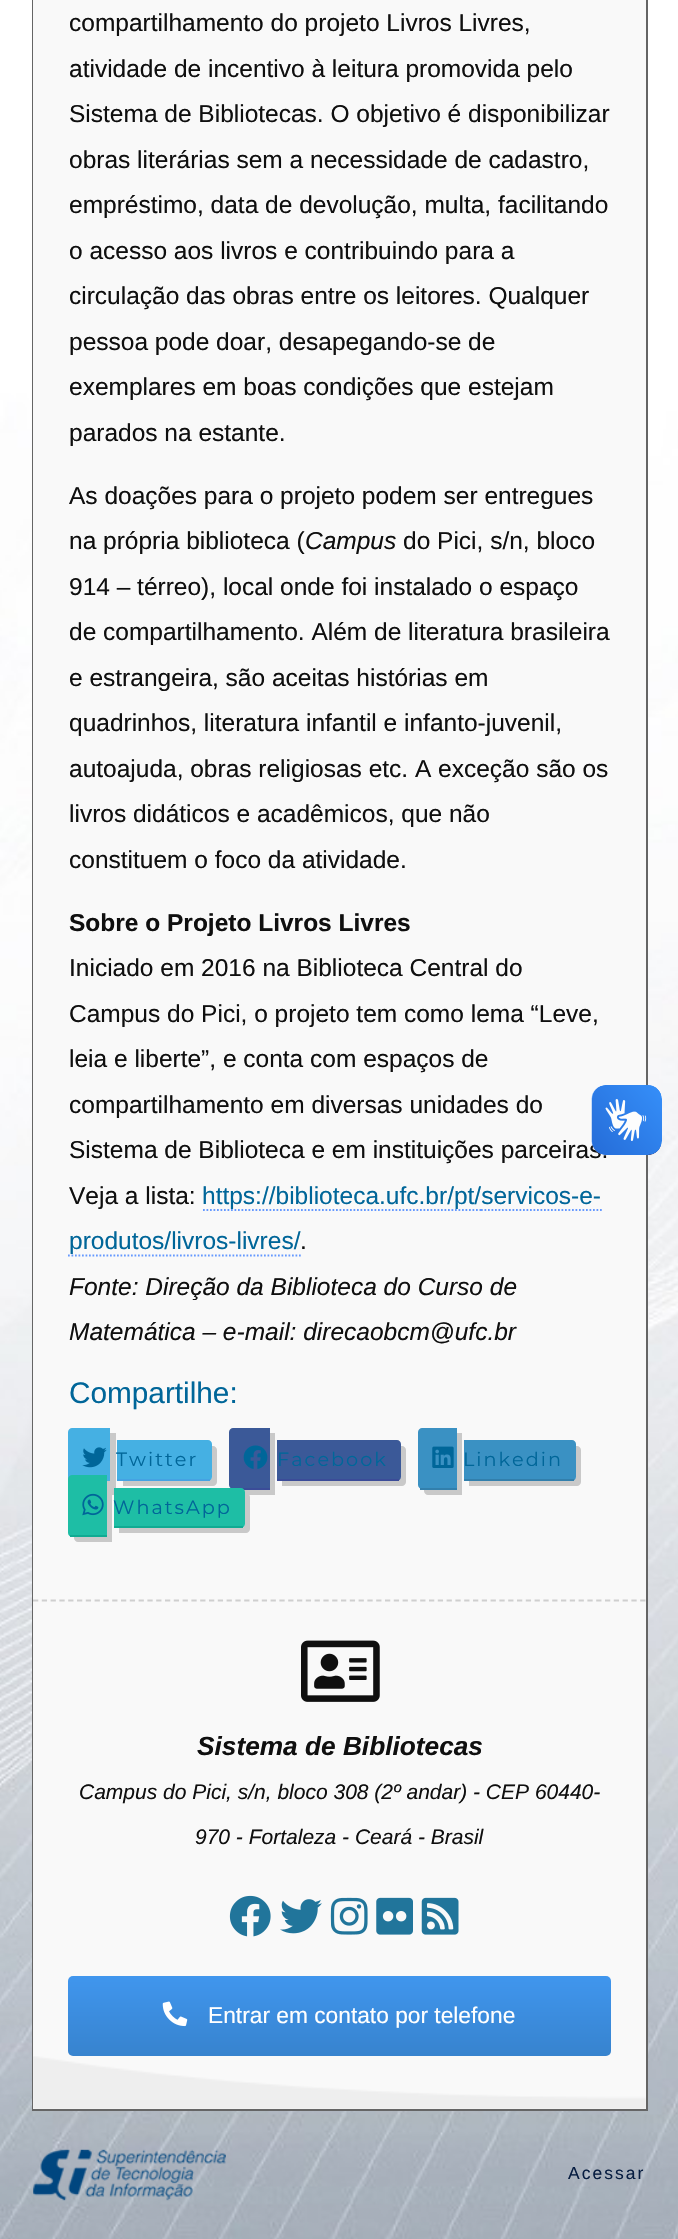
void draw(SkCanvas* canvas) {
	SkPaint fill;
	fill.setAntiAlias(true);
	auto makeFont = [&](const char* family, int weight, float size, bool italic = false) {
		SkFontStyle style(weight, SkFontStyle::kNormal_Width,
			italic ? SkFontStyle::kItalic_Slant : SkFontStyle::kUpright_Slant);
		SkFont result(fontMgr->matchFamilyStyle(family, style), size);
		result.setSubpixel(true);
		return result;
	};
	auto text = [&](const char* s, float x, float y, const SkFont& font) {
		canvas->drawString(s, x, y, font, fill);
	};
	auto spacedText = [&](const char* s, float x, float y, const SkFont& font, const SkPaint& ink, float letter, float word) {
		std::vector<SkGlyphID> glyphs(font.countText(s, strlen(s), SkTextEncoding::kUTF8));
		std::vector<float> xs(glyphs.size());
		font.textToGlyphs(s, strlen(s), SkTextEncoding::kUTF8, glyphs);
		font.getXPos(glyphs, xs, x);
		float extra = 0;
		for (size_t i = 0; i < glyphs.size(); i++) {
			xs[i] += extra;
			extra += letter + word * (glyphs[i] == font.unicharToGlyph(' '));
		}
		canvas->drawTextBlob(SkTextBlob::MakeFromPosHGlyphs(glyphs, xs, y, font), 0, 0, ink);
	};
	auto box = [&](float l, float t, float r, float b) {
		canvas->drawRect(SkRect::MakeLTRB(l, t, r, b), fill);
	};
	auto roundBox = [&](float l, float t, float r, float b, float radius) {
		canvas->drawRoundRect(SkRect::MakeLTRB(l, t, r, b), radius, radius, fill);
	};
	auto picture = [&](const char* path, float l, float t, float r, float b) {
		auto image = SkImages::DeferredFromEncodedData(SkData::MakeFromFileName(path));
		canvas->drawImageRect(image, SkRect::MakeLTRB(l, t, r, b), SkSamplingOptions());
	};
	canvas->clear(0xFFFFFFFF);
	picture("image0.png", 0, 0, 678, 2239);
	fill.setStyle(SkPaint::kStroke_Style);
	fill.setStrokeWidth(2);
	fill.setColor(0xFF656565);
	canvas->drawRect(SkRect::MakeLTRB(33, -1, 647, 2110), fill);
	fill.setStyle(SkPaint::kFill_Style);
	fill.setColor(0xFFF9F9F9);
	box(33, 0, 646, 2109);
	fill.setStyle(SkPaint::kStroke_Style);
	fill.setStrokeWidth(1.8f);
	fill.setColor(0xFF6699FF);
	fill.setPathEffect(SkDashPathEffect::Make({{1.75f, 1.75f}}, 0));
	canvas->drawPath(SkPathBuilder().moveTo(203, 1210).lineTo(481, 1210).detach(), fill);
	fill.setPathEffect(nullptr);
	fill.setPathEffect(SkDashPathEffect::Make({{1.75f, 1.75f}}, 0));
	canvas->drawPath(SkPathBuilder().moveTo(481, 1210).lineTo(602, 1210).detach(), fill);
	fill.setPathEffect(nullptr);
	fill.setPathEffect(SkDashPathEffect::Make({{1.75f, 1.75f}}, 0));
	canvas->drawPath(SkPathBuilder().moveTo(68, 1255.5f).lineTo(236, 1255.5f).detach(), fill);
	fill.setPathEffect(nullptr);
	fill.setPathEffect(SkDashPathEffect::Make({{1.75f, 1.75f}}, 0));
	canvas->drawPath(SkPathBuilder().moveTo(236, 1255.5f).lineTo(301, 1255.5f).detach(), fill);
	fill.setPathEffect(nullptr);
	fill.setStyle(SkPaint::kFill_Style);
	fill.setColor(0xFFC9C9C9);
	canvas->drawPath(SkPathBuilder().moveTo(74, 1489).lineTo(74, 1491).cubicTo(74, 1493, 76, 1495, 78, 1495).lineTo(116, 1495).lineTo(116, 1433).lineTo(110, 1433).lineTo(110, 1489).close().detach(), fill);
	fill.setColor(0xFF45B0E3);
	canvas->drawPath(SkPathBuilder().moveTo(72, 1428).lineTo(110, 1428).lineTo(110, 1489).lineTo(72, 1489).cubicTo(70, 1489, 68, 1487, 68, 1485).lineTo(68, 1432).cubicTo(68, 1430, 70, 1428, 72, 1428).close().detach(), fill);
	fill.setColor(0xFFC9C9C9);
	canvas->drawPath(SkPathBuilder().moveTo(123, 1480).lineTo(123, 1486).lineTo(213, 1486).cubicTo(215, 1486, 217, 1484, 217, 1482).lineTo(217, 1450).cubicTo(217, 1448, 215, 1446, 213, 1446).lineTo(212, 1446).lineTo(212, 1477).cubicTo(212, 1479, 210, 1480, 208, 1480).close().detach(), fill);
	fill.setColor(0xFF45B0E3);
	canvas->drawPath(SkPathBuilder().moveTo(117, 1440).lineTo(208, 1440).cubicTo(210, 1440, 212, 1442, 212, 1444).lineTo(212, 1477).cubicTo(212, 1479, 210, 1481, 208, 1481).lineTo(117, 1481).close().detach(), fill);
	fill.setColor(0xFF45A3E3);
	box(117, 1479, 210, 1481);
	picture("image1.png", 82, 1447, 107, 1468);
	fill.setColor(0xFFC9C9C9);
	canvas->drawPath(SkPathBuilder().moveTo(235, 1489).lineTo(235, 1491).cubicTo(235, 1493, 237, 1495, 239, 1495).lineTo(275, 1495).lineTo(275, 1433).lineTo(270, 1433).lineTo(270, 1489).close().detach(), fill);
	fill.setColor(0xFF3B5998);
	canvas->drawPath(SkPathBuilder().moveTo(233, 1428).lineTo(270, 1428).lineTo(270, 1489).lineTo(233, 1489).cubicTo(231, 1489, 229, 1487, 229, 1485).lineTo(229, 1432).cubicTo(229, 1430, 231, 1428, 233, 1428).close().detach(), fill);
	fill.setColor(0xFF3B4C98);
	box(241, 1488, 270, 1490);
	fill.setColor(0xFFC9C9C9);
	canvas->drawPath(SkPathBuilder().moveTo(282, 1480).lineTo(282, 1486).lineTo(402, 1486).cubicTo(404, 1486, 406, 1484, 406, 1482).lineTo(406, 1450).cubicTo(406, 1448, 404, 1446, 402, 1446).lineTo(401, 1446).lineTo(401, 1477).cubicTo(401, 1479, 399, 1480, 397, 1480).close().detach(), fill);
	fill.setColor(0xFF3B5998);
	canvas->drawPath(SkPathBuilder().moveTo(277, 1440).lineTo(397, 1440).cubicTo(399, 1440, 401, 1442, 401, 1444).lineTo(401, 1477).cubicTo(401, 1479, 399, 1481, 397, 1481).lineTo(277, 1481).close().detach(), fill);
	fill.setColor(0xFF3B4C98);
	box(277, 1479, 399, 1481);
	picture("image2.png", 243, 1445, 268, 1469);
	fill.setColor(0xFFC9C9C9);
	canvas->drawPath(SkPathBuilder().moveTo(424, 1489).lineTo(424, 1491).cubicTo(424, 1493, 426, 1495, 428, 1495).lineTo(462, 1495).lineTo(462, 1433).lineTo(457, 1433).lineTo(457, 1489).close().detach(), fill);
	fill.setColor(0xFF3A91C3);
	canvas->drawPath(SkPathBuilder().moveTo(422, 1428).lineTo(457, 1428).lineTo(457, 1489).lineTo(422, 1489).cubicTo(420, 1489, 418, 1487, 418, 1485).lineTo(418, 1432).cubicTo(418, 1430, 420, 1428, 422, 1428).close().detach(), fill);
	fill.setColor(0xFF327FAC);
	box(420, 1488, 457, 1490);
	fill.setColor(0xFFC9C9C9);
	canvas->drawPath(SkPathBuilder().moveTo(469, 1480).lineTo(469, 1486).lineTo(577, 1486).cubicTo(579, 1486, 581, 1484, 581, 1482).lineTo(581, 1450).cubicTo(581, 1448, 579, 1446, 577, 1446).lineTo(576, 1446).lineTo(576, 1477).cubicTo(576, 1479, 574, 1480, 572, 1480).close().detach(), fill);
	fill.setColor(0xFF3A91C3);
	canvas->drawPath(SkPathBuilder().moveTo(464, 1440).lineTo(572, 1440).cubicTo(574, 1440, 576, 1442, 576, 1444).lineTo(576, 1477).cubicTo(576, 1479, 574, 1481, 572, 1481).lineTo(464, 1481).close().detach(), fill);
	fill.setColor(0xFF327FAC);
	box(464, 1479, 574, 1481);
	picture("image3.png", 432, 1446, 454, 1468);
	fill.setColor(0xFFC9C9C9);
	canvas->drawPath(SkPathBuilder().moveTo(74, 1536).lineTo(74, 1538).cubicTo(74, 1540, 76, 1542, 78, 1542).lineTo(112, 1542).lineTo(112, 1481).lineTo(107, 1481).lineTo(107, 1536).close().detach(), fill);
	fill.setColor(0xFF1EBEA5);
	canvas->drawPath(SkPathBuilder().moveTo(72, 1475).lineTo(107, 1475).lineTo(107, 1537).lineTo(72, 1537).cubicTo(70, 1537, 68, 1535, 68, 1533).lineTo(68, 1479).cubicTo(68, 1477, 70, 1475, 72, 1475).close().detach(), fill);
	fill.setColor(0xFF0FAB92);
	box(70, 1535, 107, 1537);
	fill.setColor(0xFFC9C9C9);
	canvas->drawPath(SkPathBuilder().moveTo(119, 1528).lineTo(119, 1533).lineTo(246, 1533).cubicTo(248, 1533, 250, 1531, 250, 1529).lineTo(250, 1497).cubicTo(250, 1495, 248, 1493, 246, 1493).lineTo(245, 1493).lineTo(245, 1524).cubicTo(245, 1526, 243, 1528, 242, 1528).close().detach(), fill);
	fill.setColor(0xFF1EBEA5);
	canvas->drawPath(SkPathBuilder().moveTo(114, 1488).lineTo(241, 1488).cubicTo(243, 1488, 245, 1490, 245, 1492).lineTo(245, 1524).cubicTo(245, 1526, 243, 1528, 241, 1528).lineTo(114, 1528).close().detach(), fill);
	fill.setColor(0xFF0FAB92);
	box(114, 1526, 243, 1528);
	picture("image4.png", 82, 1493, 104, 1516);
	picture("image5.png", 33, 2056, 646, 2109);
	fill.setStyle(SkPaint::kStroke_Style);
	fill.setColor(0xFFCFCFCF);
	fill.setPathEffect(SkDashPathEffect::Make({{5.25f, 3.55f}}, 0));
	canvas->drawPath(SkPathBuilder().moveTo(33, 1600.5f).lineTo(646, 1600.5f).detach(), fill);
	fill.setPathEffect(nullptr);
	picture("image6.png", 301, 1640, 380, 1702);
	picture("image7.png", 229, 1895, 271, 1937);
	picture("image8.png", 280, 1899, 322, 1934);
	picture("image9.png", 330, 1897, 368, 1935);
	picture("image10.png", 376, 1897, 413, 1935);
	picture("image11.png", 421, 1897, 459, 1935);
	fill.setStyle(SkPaint::kFill_Style);
	{
		const SkColor colors[] = {0xFF4096EE, 0xFF3783CE};
		const float stops[] = {0, 1};
		const SkPoint ends[] = {{340, 1976}, {340, 2056}};
		fill.setShader(SkGradientShader::MakeLinear(ends, colors, stops, 2, SkTileMode::kClamp));
		fill.setAlpha(255);
	}
	roundBox(68, 1976, 611, 2056, 5);
	picture("image12.png", 162, 2001, 188, 2027);
	picture("image15.png", 33, 2149, 226, 2201);
	auto font1 = makeFont("Liberation Sans", 400, 24.5f);
	fill.setShader(nullptr);
	fill.setColor(0xFF0F0F0F);
	text("compartilhamento do projeto Livros Livres,", 69, 31, font1);
	text("atividade de incentivo à leitura promovida pelo", 69, 77, font1);
	text("Sistema de Bibliotecas. O objetivo é disponibilizar", 69, 122, font1);
	text("obras literárias sem a necessidade de cadastro,", 69, 168, font1);
	text("empréstimo, data de devolução, multa, facilitando", 69, 213, font1);
	text("o acesso aos livros e contribuindo para a", 69, 259, font1);
	text("circulação das obras entre os leitores. Qualquer", 69, 304, font1);
	text("pessoa pode doar, desapegando-se de", 69, 350, font1);
	text("exemplares em boas condições que estejam", 69, 395, font1);
	text("parados na estante.", 69, 441, font1);
	text("As doações para o projeto podem ser entregues", 69, 504, font1);
	text("na própria biblioteca (", 69, 549, font1);
	auto font2 = makeFont("Liberation Sans", 400, 24.5f, true);
	text("Campus", 305, 549, font2);
	text("do Pici, s/n, bloco", 403, 549, font1);
	text("914 – térreo), local onde foi instalado o espaço", 69, 595, font1);
	text("de compartilhamento. Além de literatura brasileira", 69, 640, font1);
	text("e estrangeira, são aceitas histórias em", 69, 686, font1);
	text("quadrinhos, literatura infantil e infanto-juvenil,", 69, 731, font1);
	text("autoajuda, obras religiosas etc. A exceção são os", 69, 777, font1);
	text("livros didáticos e acadêmicos, que não", 69, 822, font1);
	text("constituem o foco da atividade.", 69, 868, font1);
	auto font3 = makeFont("Liberation Sans", 700, 24.5f);
	text("Sobre o Projeto Livros Livres", 69, 931, font3);
	text("Iniciado em 2016 na Biblioteca Central do", 69, 976, font1);
	text("Campus do Pici, o projeto tem como lema “Leve,", 69, 1022, font1);
	text("leia e liberte”, e conta com espaços de", 69, 1067, font1);
	text("compartilhamento em diversas unidades do", 69, 1113, font1);
	text("Sistema de Biblioteca e em instituições parceiras.", 69, 1158, font1);
	text("Veja a lista:", 69, 1204, font1);
	fill.setColor(0xFF006699);
	text("https://biblioteca.ufc.br/pt/servicos-e-", 202, 1204, font1);
	text("produtos/livros-livres/", 69, 1249, font1);
	fill.setColor(0xFF0F0F0F);
	text(".", 300, 1249, font1);
	text("Fonte: Direção da Biblioteca do Curso de", 69, 1295, font2);
	text("Matemática – e-mail: direcaobcm@ufc.br", 69, 1340, font2);
	auto font4 = makeFont("Liberation Sans", 400, 29.75f);
	fill.setColor(0xFF006699);
	text("Compartilhe:", 69, 1403, font4);
	auto font5 = makeFont("Montserrat", 400, 19.25f);
	spacedText("Twitter", 116, 1466, font5, fill, 2, 0);
	spacedText("Facebook", 277, 1466, font5, fill, 2, 0);
	spacedText("Linkedin", 463, 1466, font5, fill, 2, 0);
	spacedText("WhatsApp", 113, 1514, font5, fill, 2, 0);
	auto font6 = makeFont("Liberation Sans", 700, 26.25f, true);
	fill.setColor(0xFF0F0F0F);
	text("Sistema de Bibliotecas", 197, 1755, font6);
	auto font7 = makeFont("Liberation Sans", 400, 21, true);
	text("Campus do Pici, s/n, bloco 308 (2º andar) - CEP 60440-", 79, 1799, font7);
	text("970 - Fortaleza - Ceará - Brasil", 195, 1844, font7);
	auto font8 = makeFont("Liberation Sans", 400, 22.75f);
	fill.setColor(0xFFFFFFFF);
	text("Entrar em contato por telefone", 208, 2023, font8);
	picture("image13.png", 591, 1085, 662, 1155);
	picture("image14.png", 592, 1085, 662, 1155);
	auto font9 = makeFont("Liberation Sans", 400, 17.5f);
	fill.setColor(0xFF071D41);
	spacedText("Acessar", 568, 2179, font9, fill, 2, 0);
}
